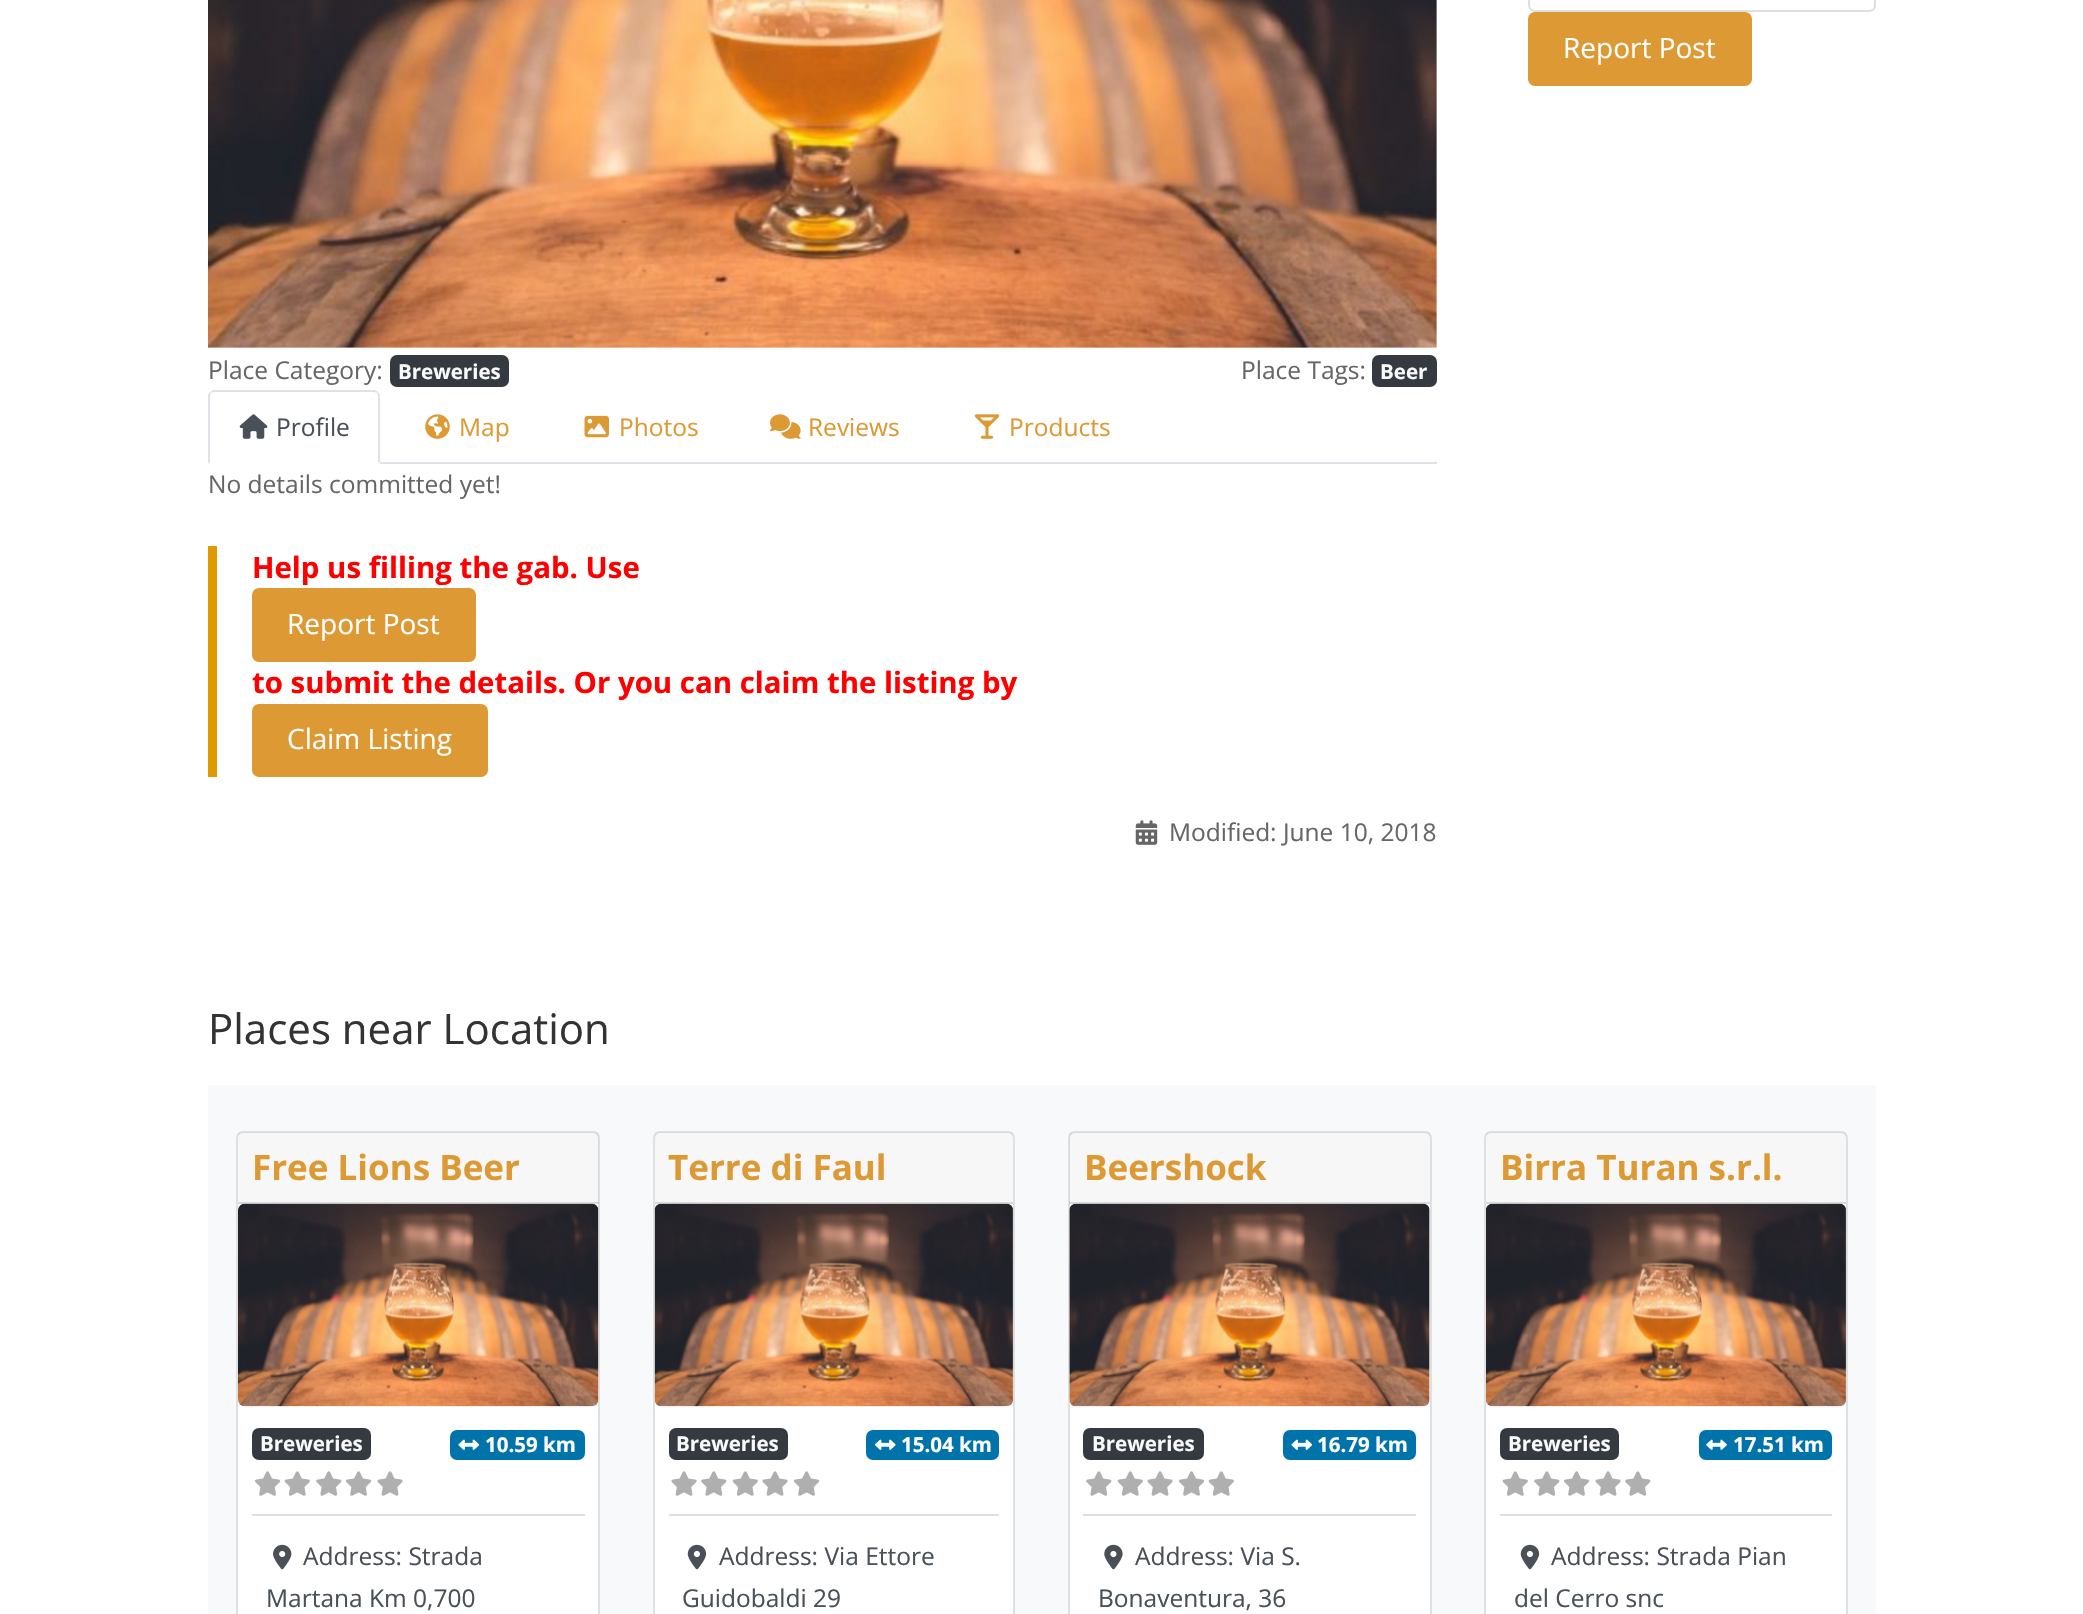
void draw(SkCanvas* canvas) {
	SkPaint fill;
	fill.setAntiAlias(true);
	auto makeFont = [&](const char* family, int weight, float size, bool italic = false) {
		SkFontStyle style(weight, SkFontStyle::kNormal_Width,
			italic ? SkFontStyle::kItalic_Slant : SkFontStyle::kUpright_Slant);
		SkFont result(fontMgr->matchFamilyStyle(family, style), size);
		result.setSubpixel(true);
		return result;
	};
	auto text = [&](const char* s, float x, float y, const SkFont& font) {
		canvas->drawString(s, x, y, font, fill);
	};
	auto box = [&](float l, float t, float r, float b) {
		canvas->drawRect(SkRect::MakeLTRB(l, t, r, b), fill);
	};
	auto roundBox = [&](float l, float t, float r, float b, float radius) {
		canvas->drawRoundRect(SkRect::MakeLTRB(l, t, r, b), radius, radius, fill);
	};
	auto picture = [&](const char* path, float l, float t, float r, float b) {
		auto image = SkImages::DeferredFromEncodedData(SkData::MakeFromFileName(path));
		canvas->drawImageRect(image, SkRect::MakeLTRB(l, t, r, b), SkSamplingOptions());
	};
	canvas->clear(0xFFFFFFFF);
	fill.setColor(0xFFDFDFDF);
	canvas->drawPath(SkPathBuilder(SkPathFillType::kEvenOdd).moveTo(1528, -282).lineTo(1876, -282).lineTo(1876, 5).cubicTo(1876, 9, 1873, 12, 1869, 12).lineTo(1535, 12).cubicTo(1531, 12, 1528, 9, 1528, 5).close().moveTo(1530, -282).lineTo(1874, -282).lineTo(1874, 5).cubicTo(1874, 8, 1872, 10, 1869, 10).lineTo(1535, 10).cubicTo(1532, 10, 1530, 8, 1530, 5).close().detach(), fill);
	fill.setColor(0xFFDD9933);
	canvas->drawRoundRect(SkRect::MakeLTRB(1529, 13, 1751, 85), 6, 6, fill);
	fill.setStyle(SkPaint::kStroke_Style);
	fill.setStrokeWidth(2);
	canvas->drawRoundRect(SkRect::MakeLTRB(1529, 13, 1751, 85), 6, 6, fill);
	picture("image0.png", 208, 0, 1437, 348);
	fill.setStyle(SkPaint::kFill_Style);
	fill.setColor(0xFF343A40);
	roundBox(390, 355, 509, 387, 7);
	roundBox(1372, 355, 1437, 387, 7);
	fill.setColor(0xFFDEE2E6);
	box(380, 462, 1437, 464);
	canvas->drawPath(SkPathBuilder().moveTo(215, 392).cubicTo(214, 392, 212, 392, 211, 393).lineTo(210, 392).lineTo(213, 390).lineTo(375, 390).lineTo(378, 392).lineTo(377, 393).cubicTo(376, 392, 374, 392, 373, 392).close().detach(), fill);
	canvas->drawPath(SkPathBuilder().moveTo(378, 392).lineTo(380, 395).lineTo(380, 464).lineTo(378, 462).lineTo(378, 397).cubicTo(378, 396, 378, 394, 377, 393).close().detach(), fill);
	fill.setColor(0xFFFFFFFF);
	canvas->drawPath(SkPathBuilder().moveTo(380, 464).lineTo(378, 462).lineTo(210, 462).lineTo(208, 464).close().detach(), fill);
	fill.setColor(0xFFDEE2E6);
	canvas->drawPath(SkPathBuilder().moveTo(208, 464).lineTo(208, 395).lineTo(210, 392).lineTo(211, 393).cubicTo(210, 394, 210, 396, 210, 397).lineTo(210, 462).close().detach(), fill);
	picture("image1.png", 239, 414, 268, 439);
	picture("image2.png", 425, 414, 450, 439);
	picture("image3.png", 584, 415, 609, 438);
	picture("image4.png", 770, 414, 801, 439);
	picture("image5.png", 974, 414, 1000, 439);
	fill.setColor(0xFFE09900);
	box(208, 546, 217, 777);
	fill.setColor(0xFFDD9933);
	canvas->drawRoundRect(SkRect::MakeLTRB(253, 589, 475, 661), 6, 6, fill);
	fill.setStyle(SkPaint::kStroke_Style);
	canvas->drawRoundRect(SkRect::MakeLTRB(253, 589, 475, 661), 6, 6, fill);
	fill.setStyle(SkPaint::kFill_Style);
	canvas->drawRoundRect(SkRect::MakeLTRB(253, 705, 487, 776), 6, 6, fill);
	fill.setStyle(SkPaint::kStroke_Style);
	canvas->drawRoundRect(SkRect::MakeLTRB(253, 705, 487, 776), 6, 6, fill);
	picture("image6.png", 1135, 820, 1158, 845);
	fill.setStyle(SkPaint::kFill_Style);
	fill.setColor(0xFFF8F9FA);
	box(208, 1085, 1876, 1614);
	fill.setColor(0xFFFFFFFF);
	roundBox(236, 1131, 600, 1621, 7);
	fill.setStyle(SkPaint::kStroke_Style);
	fill.setColor(0x1F000000);
	canvas->drawRoundRect(SkRect::MakeLTRB(237, 1132, 599, 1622), 6, 6, fill);
	fill.setStyle(SkPaint::kFill_Style);
	fill.setColor(0x08000000);
	box(238, 1132, 599, 1204);
	fill.setColor(0x1F000000);
	box(238, 1202, 599, 1204);
	picture("image7.png", 238, 1203, 599, 1407);
	fill.setColor(0xFF343A40);
	roundBox(252, 1428, 371, 1460, 7);
	fill.setColor(0xFF0073AA);
	roundBox(450, 1430, 585, 1460, 7);
	picture("image8.png", 458, 1439, 480, 1450);
	picture("image9.png", 255, 1471, 281, 1496);
	picture("image10.png", 284, 1471, 310, 1496);
	picture("image11.png", 316, 1471, 342, 1496);
	picture("image9.png", 346, 1471, 372, 1496);
	picture("image12.png", 377, 1471, 403, 1496);
	fill.setColor(0xFFDFDFDF);
	box(252, 1514, 585, 1516);
	picture("image13.png", 273, 1544, 292, 1570);
	fill.setColor(0xFFFFFFFF);
	roundBox(653, 1131, 1015, 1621, 7);
	fill.setStyle(SkPaint::kStroke_Style);
	fill.setColor(0x1F000000);
	canvas->drawRoundRect(SkRect::MakeLTRB(654, 1132, 1014, 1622), 6, 6, fill);
	fill.setStyle(SkPaint::kFill_Style);
	fill.setColor(0x08000000);
	box(655, 1132, 1013, 1202);
	fill.setColor(0xFFD8D8D8);
	box(655, 1202, 1013, 1204);
	picture("image14.png", 654, 1203, 1014, 1407);
	fill.setColor(0xFF343A40);
	roundBox(669, 1428, 788, 1460, 7);
	fill.setColor(0xFF0073AA);
	roundBox(866, 1430, 999, 1460, 7);
	picture("image15.png", 875, 1439, 896, 1450);
	picture("image12.png", 671, 1471, 697, 1496);
	picture("image11.png", 701, 1471, 727, 1496);
	picture("image10.png", 732, 1471, 758, 1496);
	picture("image12.png", 762, 1471, 788, 1496);
	picture("image9.png", 794, 1471, 820, 1496);
	fill.setColor(0xFFDFDFDF);
	box(669, 1514, 999, 1516);
	picture("image16.png", 687, 1544, 707, 1570);
	fill.setColor(0xFFFFFFFF);
	roundBox(1068, 1131, 1432, 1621, 7);
	fill.setStyle(SkPaint::kStroke_Style);
	fill.setColor(0x1F000000);
	canvas->drawRoundRect(SkRect::MakeLTRB(1069, 1132, 1431, 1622), 6, 6, fill);
	fill.setStyle(SkPaint::kFill_Style);
	fill.setColor(0x08000000);
	box(1069, 1132, 1430, 1204);
	fill.setColor(0x1F000000);
	box(1069, 1202, 1430, 1204);
	picture("image17.png", 1069, 1203, 1430, 1407);
	fill.setColor(0xFF343A40);
	roundBox(1083, 1428, 1204, 1460, 7);
	fill.setColor(0xFF0073AA);
	roundBox(1283, 1430, 1416, 1460, 7);
	picture("image8.png", 1291, 1439, 1313, 1450);
	picture("image11.png", 1086, 1471, 1112, 1496);
	picture("image10.png", 1117, 1471, 1143, 1496);
	picture("image12.png", 1147, 1471, 1173, 1496);
	picture("image9.png", 1179, 1471, 1205, 1496);
	picture("image10.png", 1208, 1471, 1234, 1496);
	fill.setColor(0xFFDFDFDF);
	box(1083, 1514, 1416, 1516);
	picture("image18.png", 1104, 1544, 1123, 1570);
	fill.setColor(0xFFFFFFFF);
	roundBox(1484, 1131, 1848, 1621, 7);
	fill.setStyle(SkPaint::kStroke_Style);
	fill.setColor(0x1F000000);
	canvas->drawRoundRect(SkRect::MakeLTRB(1485, 1132, 1847, 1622), 6, 6, fill);
	fill.setStyle(SkPaint::kFill_Style);
	fill.setColor(0x08000000);
	box(1486, 1132, 1846, 1202);
	fill.setColor(0xFFD8D8D8);
	box(1486, 1202, 1846, 1204);
	picture("image19.png", 1486, 1203, 1847, 1407);
	fill.setColor(0xFF343A40);
	roundBox(1500, 1428, 1619, 1460, 7);
	fill.setColor(0xFF0073AA);
	roundBox(1699, 1430, 1832, 1460, 7);
	picture("image20.png", 1706, 1439, 1727, 1450);
	picture("image10.png", 1502, 1471, 1528, 1496);
	picture("image11.png", 1534, 1471, 1560, 1496);
	picture("image9.png", 1564, 1471, 1590, 1496);
	picture("image12.png", 1595, 1471, 1621, 1496);
	picture("image11.png", 1625, 1471, 1651, 1496);
	fill.setColor(0xFFDFDFDF);
	box(1500, 1514, 1832, 1516);
	picture("image16.png", 1520, 1544, 1540, 1570);
	auto font1 = makeFont("Open Sans", 400, 28);
	fill.setColor(0xFFFFFFFF);
	text("Report Post", 1563, 58, font1);
	auto font2 = makeFont("Open Sans", 400, 24.5f);
	fill.setColor(0xFF666666);
	text("Place Category:", 208, 379, font2);
	auto font3 = makeFont("Open Sans", 700, 20.5f);
	fill.setColor(0xFFF8F9FA);
	text("Breweries", 398, 379, font3);
	fill.setColor(0xFF666666);
	text("Place Tags:", 1241, 379, font2);
	fill.setColor(0xFFF8F9FA);
	text("Beer", 1380, 379, font3);
	fill.setColor(0xFF495057);
	text("Profile", 276, 436, font2);
	fill.setColor(0xFFDD9933);
	text("Map", 459, 436, font2);
	text("Photos", 619, 436, font2);
	text("Reviews", 808, 436, font2);
	text("Products", 1009, 436, font2);
	fill.setColor(0xFF666666);
	text("No details committed yet!", 208, 493, font2);
	auto font4 = makeFont("Open Sans", 700, 29.4f);
	fill.setColor(0xFFFF0000);
	text("Help us filling the gab. Use", 252, 578, font4);
	fill.setColor(0xFFFFFFFF);
	text("Report Post", 287, 634, font1);
	fill.setColor(0xFFFF0000);
	text("to submit the details. Or you can claim the listing by", 252, 693, font4);
	fill.setColor(0xFFFFFFFF);
	text("Claim Listing", 287, 749, font1);
	fill.setColor(0xFF666666);
	text("Modified: June 10, 2018", 1169, 841, font2);
	auto font5 = makeFont("Open Sans", 400, 42);
	fill.setColor(0xFF333333);
	text("Places near Location", 208, 1044, font5);
	auto font6 = makeFont("Open Sans", 700, 35);
	fill.setColor(0xFFDD9933);
	text("Free Lions Beer", 252, 1180, font6);
	fill.setColor(0xFFF8F9FA);
	text("Breweries", 260, 1451, font3);
	fill.setColor(0xFFFFFFFF);
	text("10.59 km", 485, 1452, font3);
	fill.setColor(0xFF495057);
	text("Address: Strada", 303, 1565, font2);
	text("Martana Km 0,700", 266, 1607, font2);
	fill.setColor(0xFFDD9933);
	text("Terre di Faul", 668, 1180, font6);
	fill.setColor(0xFFF8F9FA);
	text("Breweries", 676, 1451, font3);
	fill.setColor(0xFFFFFFFF);
	text("15.04 km", 901, 1452, font3);
	fill.setColor(0xFF495057);
	text("Address: Via Ettore", 719, 1565, font2);
	text("Guidobaldi 29", 682, 1607, font2);
	fill.setColor(0xFFDD9933);
	text("Beershock", 1084, 1180, font6);
	fill.setColor(0xFFF8F9FA);
	text("Breweries", 1092, 1451, font3);
	fill.setColor(0xFFFFFFFF);
	text("16.79 km", 1317, 1452, font3);
	fill.setColor(0xFF495057);
	text("Address: Via S.", 1135, 1565, font2);
	text("Bonaventura, 36", 1098, 1607, font2);
	fill.setColor(0xFFDD9933);
	text("Birra Turan s.r.l.", 1500, 1180, font6);
	fill.setColor(0xFFF8F9FA);
	text("Breweries", 1508, 1451, font3);
	fill.setColor(0xFFFFFFFF);
	text("17.51 km", 1733, 1452, font3);
	fill.setColor(0xFF495057);
	text("Address: Strada Pian", 1551, 1565, font2);
	text("del Cerro snc", 1514, 1607, font2);
}
